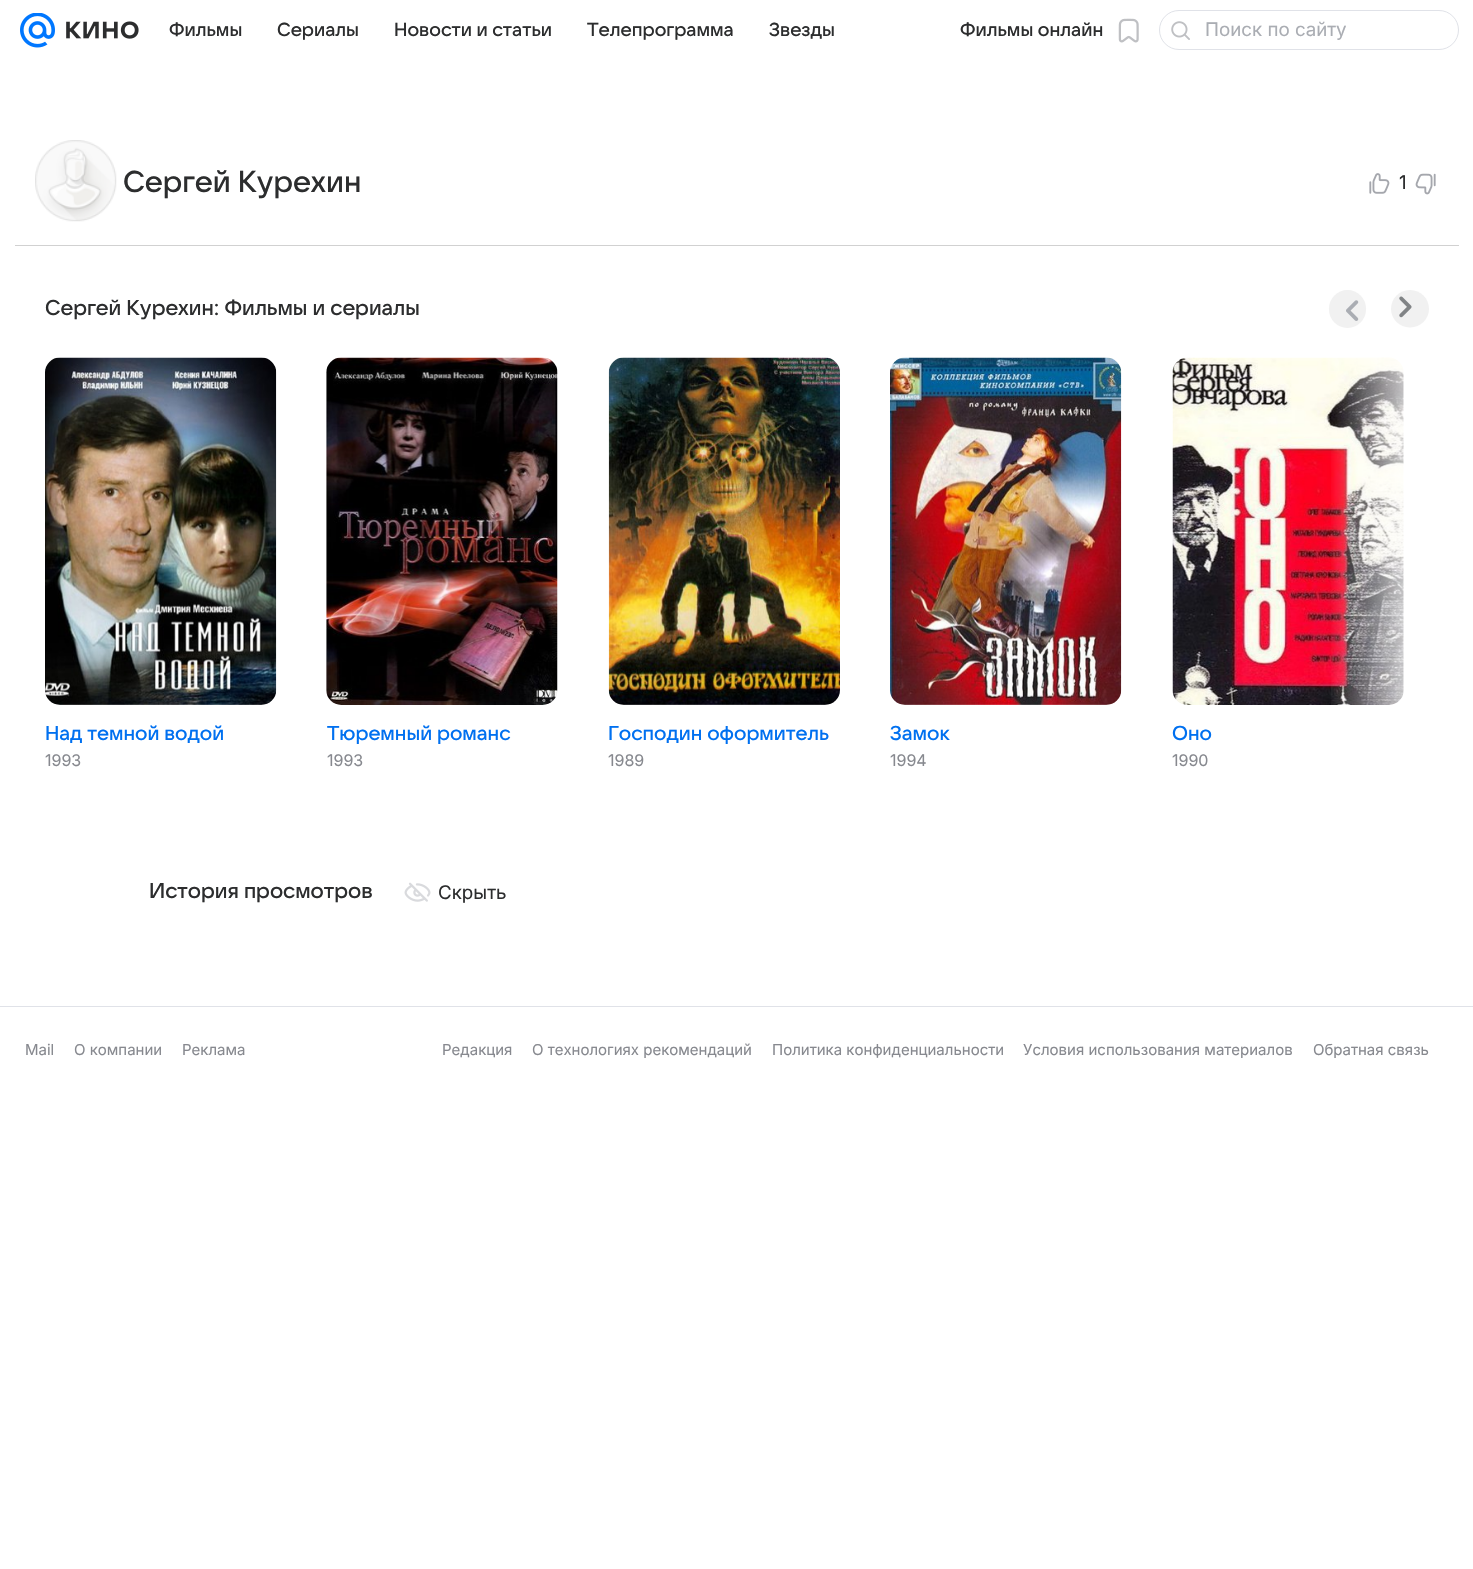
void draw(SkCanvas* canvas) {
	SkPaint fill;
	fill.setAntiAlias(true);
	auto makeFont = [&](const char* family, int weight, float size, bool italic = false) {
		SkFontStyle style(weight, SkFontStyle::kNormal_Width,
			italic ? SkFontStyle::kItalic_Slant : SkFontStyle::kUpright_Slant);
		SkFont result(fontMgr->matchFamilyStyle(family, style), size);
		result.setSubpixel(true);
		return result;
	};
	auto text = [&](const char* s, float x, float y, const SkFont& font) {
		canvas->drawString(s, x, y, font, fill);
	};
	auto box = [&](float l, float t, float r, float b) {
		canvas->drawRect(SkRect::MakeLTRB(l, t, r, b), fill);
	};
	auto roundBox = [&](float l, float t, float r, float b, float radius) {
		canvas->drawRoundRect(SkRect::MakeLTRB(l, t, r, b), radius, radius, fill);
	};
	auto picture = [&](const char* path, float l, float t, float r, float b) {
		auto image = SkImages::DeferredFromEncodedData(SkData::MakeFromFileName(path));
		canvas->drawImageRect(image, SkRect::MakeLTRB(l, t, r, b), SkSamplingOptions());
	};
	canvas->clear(0xFFFFFFFF);
	picture("image0.png", 20, 13, 55, 48);
	picture("image1.png", 66, 21, 139, 39);
	picture("image2.png", 1118, 18, 1139, 43);
	fill.setStyle(SkPaint::kStroke_Style);
	fill.setStrokeWidth(1);
	fill.setColor(0xFFE0E2E8);
	canvas->drawRoundRect(SkRect::MakeLTRB(1159.5f, 10.5f, 1458.5f, 49.5f), 19.5f, 19.5f, fill);
	picture("image3.png", 1171, 21, 1190, 40);
	fill.setStyle(SkPaint::kFill_Style);
	fill.setColor(0xFFD1D1D1);
	box(15, 245, 1459, 246);
	picture("image4.png", 35, 140, 117, 222);
	picture("image5.png", 1369, 173, 1390, 194);
	picture("image6.png", 1415, 173, 1436, 195);
	fill.setColor(0xFFF1F1F1);
	roundBox(1329, 290, 1366, 328, 18.5f);
	picture("image7.png", 1346, 300, 1359, 321);
	canvas->drawPath(SkPathBuilder().moveTo(1410, 327.5f).cubicTo(1399.5f, 327.5f, 1391, 319, 1391, 309).cubicTo(1391, 298.5f, 1399.5f, 290, 1410, 290).cubicTo(1420.5f, 290, 1429, 298.5f, 1429, 309).cubicTo(1429, 319, 1420.5f, 327.5f, 1410, 327.5f).close().detach(), fill);
	picture("image8.png", 1399, 296, 1412, 318);
	picture("image13.png", 1172, 357, 1404, 705);
	{
		const SkColor colors[] = {0x00FFFFFF, 0xFFFFFFFF};
		const float stops[] = {0, 1};
		const SkPoint ends[] = {{1329, 591}, {1429, 591}};
		fill.setShader(SkGradientShader::MakeLinear(ends, colors, stops, 2, SkTileMode::kClamp));
		fill.setAlpha(255);
	}
	box(1331, 358, 1404, 705);
	picture("image9.png", 45, 357, 277, 705);
	picture("image10.png", 326, 357, 558, 705);
	picture("image11.png", 608, 357, 840, 705);
	picture("image12.png", 890, 357, 1122, 705);
	picture("image14.png", 404, 882, 431, 902);
	fill.setShader(nullptr);
	fill.setColor(0xFFE0E2E8);
	box(0, 1006, 1473, 1007);
	auto font1 = makeFont("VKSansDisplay", 500, 18.75f);
	fill.setColor(0xFF2C2D2E);
	text("Фильмы", 169, 36, font1);
	text("Сериалы", 277, 36, font1);
	text("Новости и статьи", 394, 36, font1);
	text("Телепрограмма", 587, 36, font1);
	text("Звезды", 769, 36, font1);
	text("Фильмы онлайн", 960, 36, font1);
	auto font2 = makeFont("Inter", 400, 18.75f);
	fill.setColor(0xFFAAADB3);
	text("Поиск по сайту", 1205, 36, font2);
	auto font3 = makeFont("VKSansDisplay", 500, 30);
	fill.setColor(0xFF2C2D2E);
	text("Сергей Курехин", 123, 192, font3);
	text("1", 1399, 189, font2);
	auto font4 = makeFont("VKSansDisplay", 500, 21.25f);
	text("Сергей Курехин: Фильмы и сериалы", 45, 315, font4);
	auto font5 = makeFont("VKSansDisplay", 500, 20);
	fill.setColor(0xFF0070F0);
	text("Над темной водой", 45, 740, font5);
	auto font6 = makeFont("Inter", 400, 16);
	fill.setColor(0xFF87898F);
	text("1993", 45, 766, font6);
	fill.setColor(0xFF0070F0);
	text("Тюремный романс", 327, 740, font5);
	fill.setColor(0xFF87898F);
	text("1993", 327, 766, font6);
	fill.setColor(0xFF0070F0);
	text("Господин оформитель", 608, 740, font5);
	fill.setColor(0xFF87898F);
	text("1989", 608, 766, font6);
	fill.setColor(0xFF0070F0);
	text("Замок", 890, 740, font5);
	fill.setColor(0xFF87898F);
	text("1994", 890, 766, font6);
	fill.setColor(0xFF0070F0);
	text("Оно", 1172, 740, font5);
	fill.setColor(0xFF87898F);
	text("1990", 1172, 766, font6);
	fill.setColor(0xFF2C2D2E);
	text("История просмотров", 149, 898, font4);
	text("Скрыть", 438, 899, font2);
	auto font7 = makeFont("Inter", 400, 15);
	fill.setColor(0xFF87898F);
	text("Mail", 25, 1055, font7);
	text("О компании", 74, 1055, font7);
	text("Реклама", 182, 1055, font7);
	text("Редакция", 442, 1055, font7);
	text("О технологиях рекомендаций", 532, 1055, font7);
	text("Политика конфиденциальности", 772, 1055, font7);
	text("Условия использования материалов", 1023, 1055, font7);
	text("Обратная связь", 1313, 1055, font7);
}
